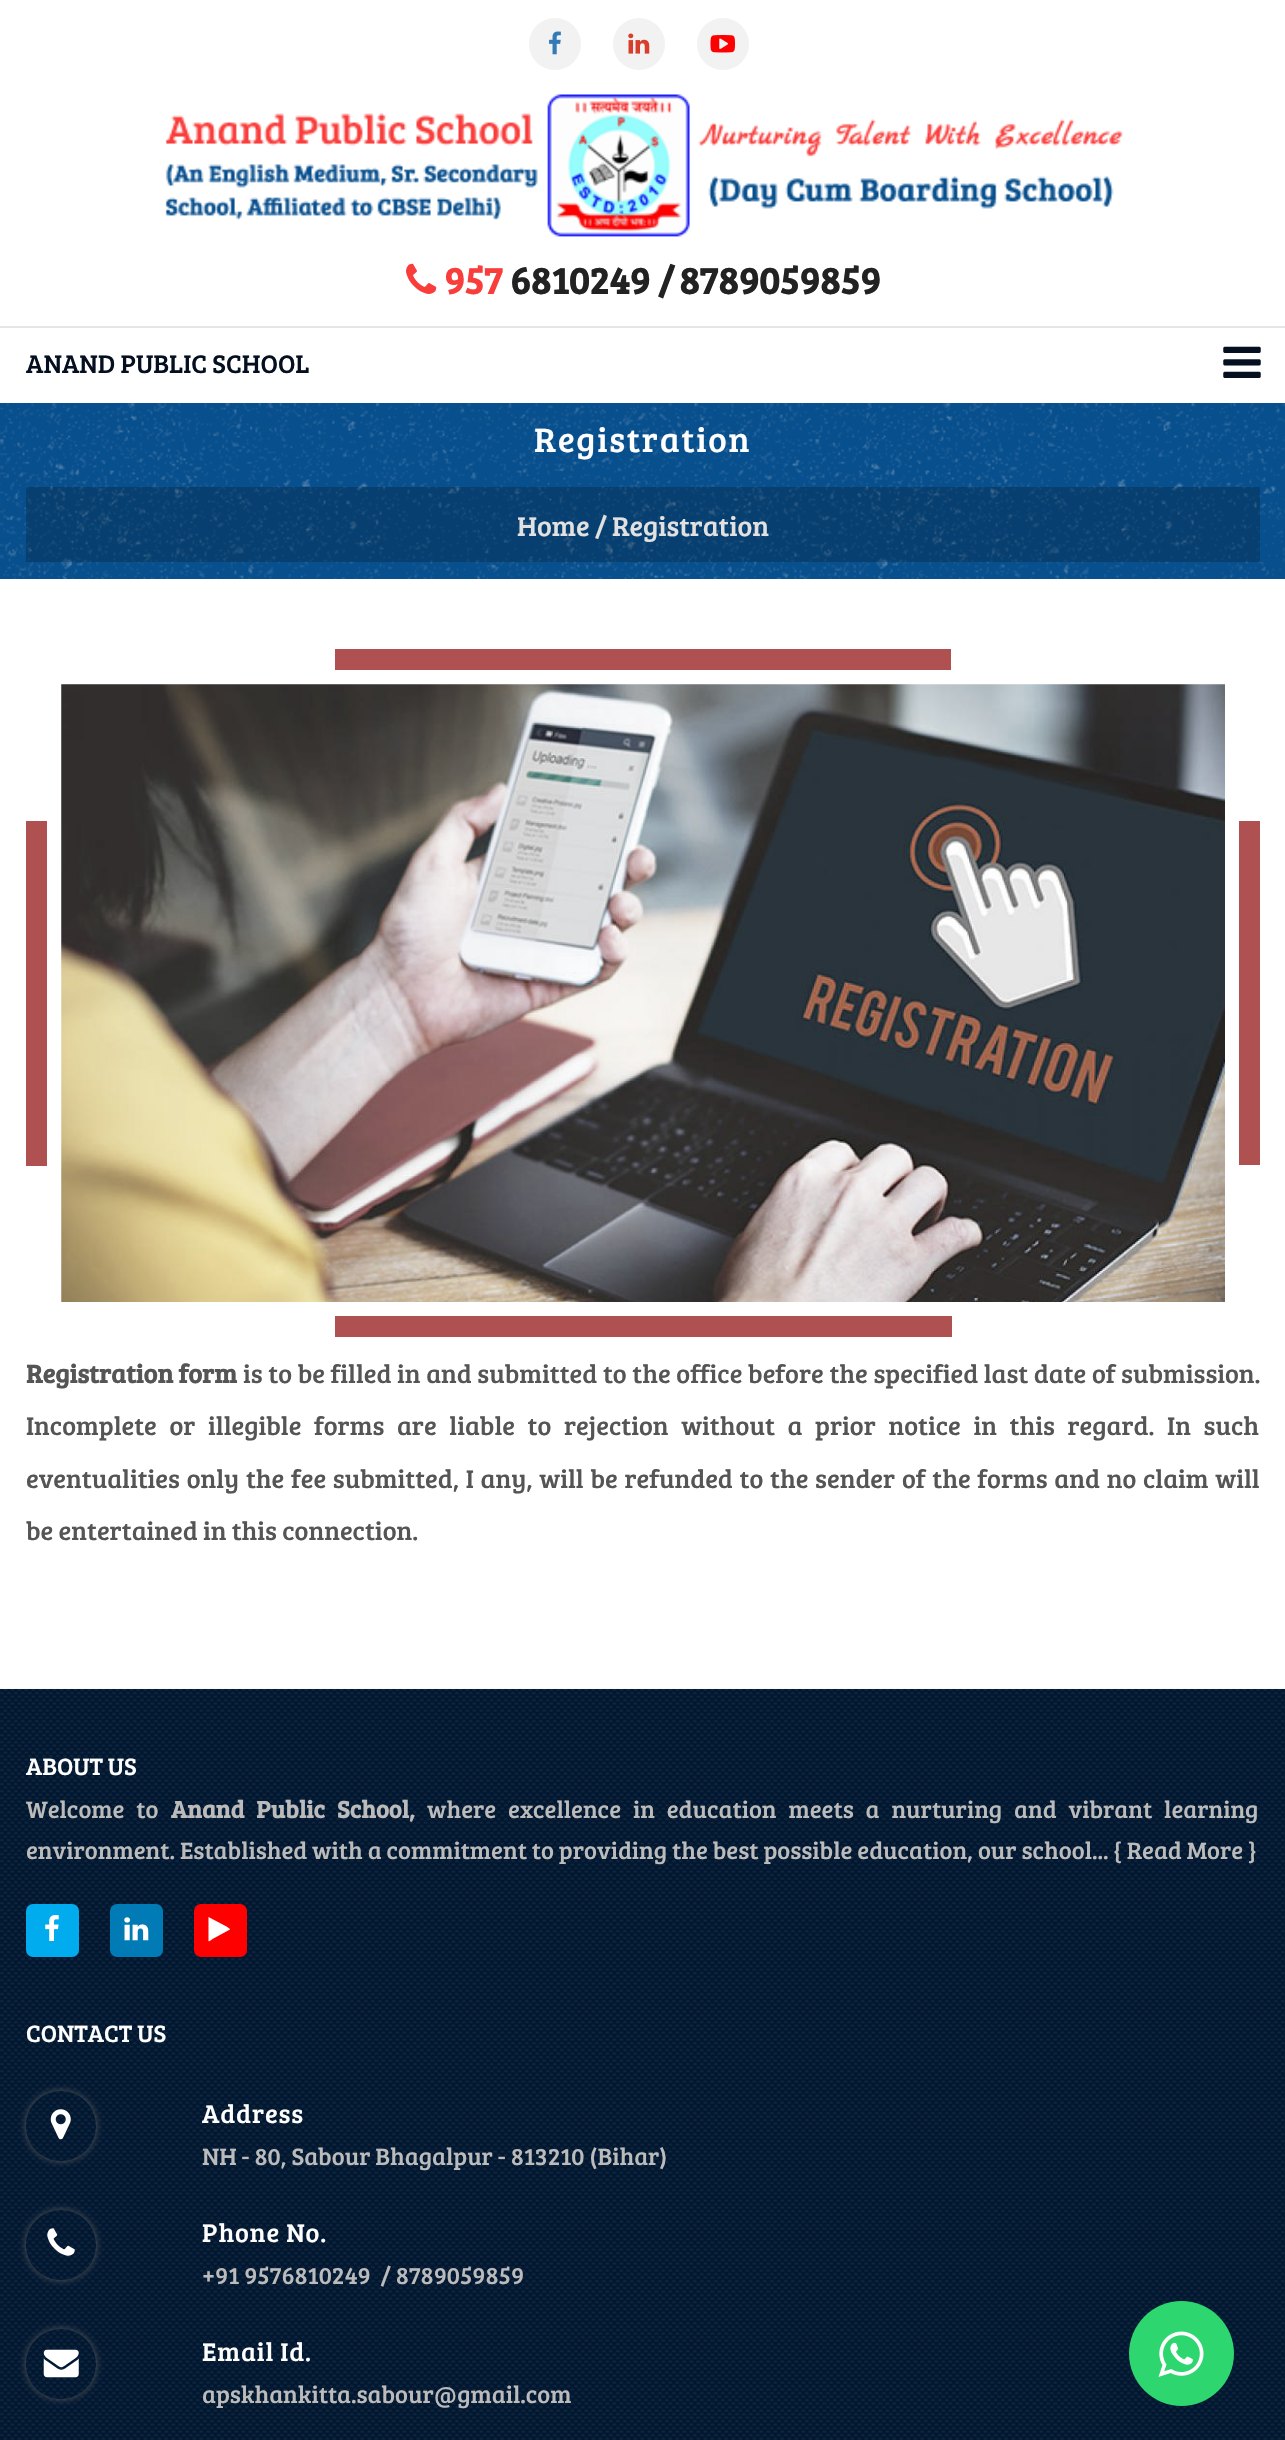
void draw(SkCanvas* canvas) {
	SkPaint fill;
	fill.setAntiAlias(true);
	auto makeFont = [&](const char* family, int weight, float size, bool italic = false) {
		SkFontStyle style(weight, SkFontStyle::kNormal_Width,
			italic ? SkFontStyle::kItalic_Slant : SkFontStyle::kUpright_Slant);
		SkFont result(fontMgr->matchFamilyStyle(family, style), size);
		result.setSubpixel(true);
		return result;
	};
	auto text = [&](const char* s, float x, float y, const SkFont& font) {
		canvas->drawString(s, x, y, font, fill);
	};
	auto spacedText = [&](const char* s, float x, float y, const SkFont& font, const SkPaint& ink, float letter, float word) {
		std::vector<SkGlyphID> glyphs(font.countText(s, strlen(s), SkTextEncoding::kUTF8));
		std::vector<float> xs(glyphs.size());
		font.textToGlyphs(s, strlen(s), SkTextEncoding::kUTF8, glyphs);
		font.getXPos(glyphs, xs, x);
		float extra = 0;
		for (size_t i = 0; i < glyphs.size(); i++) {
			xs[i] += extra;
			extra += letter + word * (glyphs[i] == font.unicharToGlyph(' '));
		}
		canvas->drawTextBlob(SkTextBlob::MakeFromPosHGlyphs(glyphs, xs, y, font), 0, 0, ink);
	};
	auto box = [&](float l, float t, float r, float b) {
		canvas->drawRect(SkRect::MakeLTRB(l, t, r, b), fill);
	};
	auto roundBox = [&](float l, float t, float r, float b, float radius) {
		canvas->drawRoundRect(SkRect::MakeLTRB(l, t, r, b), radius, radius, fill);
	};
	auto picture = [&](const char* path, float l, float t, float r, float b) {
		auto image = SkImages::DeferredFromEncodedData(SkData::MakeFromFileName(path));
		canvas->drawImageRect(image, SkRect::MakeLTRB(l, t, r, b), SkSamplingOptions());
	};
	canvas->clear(0xFFFFFFFF);
	fill.setColor(0xFFE5E5E5);
	box(0, 326, 1285, 328);
	fill.setColor(0xFFF2F2F2);
	canvas->drawCircle(555, 44, 26, fill);
	picture("image0.png", 549, 31, 561, 55);
	canvas->drawCircle(639, 44, 26, fill);
	picture("image1.png", 628, 33, 650, 54);
	canvas->drawCircle(723, 44, 26, fill);
	picture("image2.png", 710, 35, 735, 53);
	picture("image3.png", 165, 94, 1123, 237);
	picture("image4.png", 406, 263, 437, 294);
	picture("image5.png", 1223, 346, 1261, 378);
	fill.setColor(0xFF084F8D);
	box(0, 403, 1285, 579);
	picture("image6.png", 0, 403, 1285, 579);
	fill.setColor(0x33000000);
	box(26, 487, 1260, 562);
	{
		const SkColor colors[] = {0xFFFFFFFF, 0xFFFFFFFF, 0xFFAF5150, 0xFFAF5150, 0xFFFFFFFF, 0xFFFFFFFF, 0xFFAF5150, 0xFFAF5150};
		const float stops[] = {0, 0.25f, 0.25f, 0.5f, 0.5f, 0.75f, 0.75f, 1};
		const SkPoint ends[] = {{-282, 660}, {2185, 660}};
		fill.setShader(SkGradientShader::MakeLinear(ends, colors, stops, 8, SkTileMode::kClamp));
		fill.setAlpha(255);
	}
	box(335, 649, 952, 670);
	{
		const SkColor colors[] = {0xFFFFFFFF, 0xFFFFFFFF, 0xFFAF5150, 0xFFAF5150, 0xFFFFFFFF, 0xFFFFFFFF, 0xFFAF5150, 0xFFAF5150};
		const float stops[] = {0, 0.25f, 0.25f, 0.5f, 0.5f, 0.75f, 0.75f, 1};
		const SkPoint ends[] = {{37, -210}, {37, 1165}};
		fill.setShader(SkGradientShader::MakeLinear(ends, colors, stops, 8, SkTileMode::kClamp));
		fill.setAlpha(255);
	}
	box(26, 821, 47, 1166);
	picture("image7.png", 61, 684, 1225, 1302);
	{
		const SkColor colors[] = {0xFFFFFFFF, 0xFFFFFFFF, 0xFFAF5150, 0xFFAF5150, 0xFFFFFFFF, 0xFFFFFFFF, 0xFFAF5150, 0xFFAF5150};
		const float stops[] = {0, 0.25f, 0.25f, 0.5f, 0.5f, 0.75f, 0.75f, 1};
		const SkPoint ends[] = {{1250, 477}, {1250, 1853}};
		fill.setShader(SkGradientShader::MakeLinear(ends, colors, stops, 8, SkTileMode::kClamp));
		fill.setAlpha(255);
	}
	box(1239, 821, 1260, 1165);
	{
		const SkColor colors[] = {0xFFFFFFFF, 0xFFFFFFFF, 0xFFAF5150, 0xFFAF5150, 0xFFFFFFFF, 0xFFFFFFFF, 0xFFAF5150, 0xFFAF5150};
		const float stops[] = {0, 0.25f, 0.25f, 0.5f, 0.5f, 0.75f, 0.75f, 1};
		const SkPoint ends[] = {{-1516, 1327}, {952, 1327}};
		fill.setShader(SkGradientShader::MakeLinear(ends, colors, stops, 8, SkTileMode::kClamp));
		fill.setAlpha(255);
	}
	box(335, 1316, 952, 1337);
	fill.setShader(nullptr);
	fill.setColor(0xFF001936);
	box(0, 1689, 1285, 2440);
	picture("image8.png", 0, 1688, 1285, 2440);
	fill.setColor(0xFF00ACED);
	roundBox(26, 1904, 79, 1957, 7);
	picture("image9.png", 45, 1915, 59, 1941);
	fill.setColor(0xFF007BB6);
	roundBox(110, 1904, 163, 1957, 7);
	picture("image10.png", 124, 1917, 149, 1941);
	fill.setColor(0xFFFF0000);
	roundBox(194, 1904, 247, 1957, 7);
	fill.setColor(0xFFFFFFFF);
	canvas->drawPath(SkPathBuilder().moveTo(230, 1929.5f).lineTo(212.5f, 1939).cubicTo(212, 1939.5f, 209, 1942, 208.5f, 1941).lineTo(208.5f, 1917).lineTo(226.5f, 1926.5f).lineTo(230, 1929).close().detach(), fill);
	canvas->save();
	canvas->clipPath(SkPathBuilder(SkPathFillType::kEvenOdd).moveTo(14, 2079).lineTo(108, 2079).lineTo(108, 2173).lineTo(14, 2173).close().moveTo(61, 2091).cubicTo(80.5f, 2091, 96, 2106.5f, 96, 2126).cubicTo(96, 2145.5f, 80.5f, 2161, 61, 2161).cubicTo(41.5f, 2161, 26, 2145.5f, 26, 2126).cubicTo(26, 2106.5f, 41.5f, 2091, 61, 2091).close().detach(), true);
	fill.setColor(0xFF5A5A5A);
	fill.setMaskFilter(SkMaskFilter::MakeBlur(kNormal_SkBlurStyle, 3.5f));
	canvas->drawRoundRect(SkRect::MakeLTRB(26, 2091, 96, 2161), 35, 35, fill);
	fill.setMaskFilter(nullptr);
	canvas->restore();
	picture("image11.png", 50, 2109, 71, 2140);
	canvas->save();
	canvas->clipPath(SkPathBuilder(SkPathFillType::kEvenOdd).moveTo(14, 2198).lineTo(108, 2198).lineTo(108, 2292).lineTo(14, 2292).close().moveTo(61, 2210).cubicTo(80.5f, 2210, 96, 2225.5f, 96, 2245).cubicTo(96, 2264.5f, 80.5f, 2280, 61, 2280).cubicTo(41.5f, 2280, 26, 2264.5f, 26, 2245).cubicTo(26, 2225.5f, 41.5f, 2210, 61, 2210).close().detach(), true);
	fill.setMaskFilter(SkMaskFilter::MakeBlur(kNormal_SkBlurStyle, 3.5f));
	canvas->drawRoundRect(SkRect::MakeLTRB(26, 2210, 96, 2280), 35, 35, fill);
	fill.setMaskFilter(nullptr);
	canvas->restore();
	picture("image12.png", 47, 2228, 75, 2256);
	canvas->save();
	canvas->clipPath(SkPathBuilder(SkPathFillType::kEvenOdd).moveTo(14, 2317).lineTo(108, 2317).lineTo(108, 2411).lineTo(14, 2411).close().moveTo(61, 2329).cubicTo(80.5f, 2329, 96, 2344.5f, 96, 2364).cubicTo(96, 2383.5f, 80.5f, 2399, 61, 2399).cubicTo(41.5f, 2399, 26, 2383.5f, 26, 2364).cubicTo(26, 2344.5f, 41.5f, 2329, 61, 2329).close().detach(), true);
	fill.setMaskFilter(SkMaskFilter::MakeBlur(kNormal_SkBlurStyle, 3.5f));
	canvas->drawRoundRect(SkRect::MakeLTRB(26, 2329, 96, 2399), 35, 35, fill);
	fill.setMaskFilter(nullptr);
	canvas->restore();
	picture("image13.png", 43, 2349, 79, 2378);
	fill.setColor(0xFF2ED66F);
	canvas->drawCircle(1181.5f, 2353.5f, 52.5f, fill);
	picture("image14.png", 1158, 2331, 1204, 2377);
	auto font1 = makeFont("Bree Serif", 700, 38.5f);
	fill.setColor(0xFFF93D3B);
	text("957", 444, 294, font1);
	fill.setColor(0xFF222222);
	text("6810249 /", 510, 294, font1);
	text("8789059859", 679, 294, font1);
	auto font2 = makeFont("Bree Serif", 400, 26.25f);
	fill.setColor(0xFF04101F);
	text("ANAND PUBLIC SCHOOL", 26, 373, font2);
	auto font3 = makeFont("Bree Serif", 400, 35);
	fill.setColor(0xFFFFFFFF);
	spacedText("Registration", 534, 452, font3, fill, 1.75f, 0);
	auto font4 = makeFont("Bree Serif", 400, 28);
	fill.setColor(0xFFE2E1E1);
	text("Home /", 517, 536, font4);
	text("Registration", 612, 536, font4);
	auto font5 = makeFont("Bree Serif", 700, 26.25f);
	fill.setColor(0xFF555555);
	text("Registration form", 26, 1383, font5);
	spacedText("is to be filled in and submitted to the office before the specified last date of submission.", 243, 1383, font2, fill, 0, 0.4f);
	spacedText("Incomplete or illegible forms are liable to rejection without a prior notice in this regard. In such", 26, 1435, font2, fill, 0, 7.4f);
	spacedText("eventualities only the fee submitted, I any, will be refunded to the sender of the forms and no claim will", 26, 1488, font2, fill, 0, 1.5f);
	text("be entertained in this connection.", 26, 1540, font2);
	auto font6 = makeFont("Bree Serif", 400, 24.5f);
	fill.setColor(0xFFFFFFFF);
	text("ABOUT US", 26, 1775, font6);
	fill.setColor(0xFFBBBBBB);
	spacedText("Welcome to", 26, 1818, font6, fill, 0, 7);
	auto font7 = makeFont("Bree Serif", 700, 24.5f);
	spacedText("Anand Public School,", 171, 1818, font7, fill, 0, 7);
	spacedText("where excellence in education meets a nurturing and vibrant learning", 427, 1818, font6, fill, 0, 7);
	text("environment. Established with a commitment to providing the best possible education, our school... { Read More }", 26, 1859, font6);
	fill.setColor(0xFFFFFFFF);
	text("CONTACT US", 26, 2042, font6);
	spacedText("Address", 202, 2123, font2, fill, 0.9f, 0);
	fill.setColor(0xFFBBBBBB);
	text("NH - 80, Sabour Bhagalpur - 813210 (Bihar)", 202, 2165, font6);
	fill.setColor(0xFFFFFFFF);
	spacedText("Phone No.", 202, 2242, font2, fill, 0.9f, 0);
	fill.setColor(0xFFBBBBBB);
	text("+91 9576810249  / 8789059859", 202, 2284, font6);
	fill.setColor(0xFFFFFFFF);
	spacedText("Email Id.", 202, 2361, font2, fill, 0.9f, 0);
	fill.setColor(0xFFBBBBBB);
	text("apskhankitta.sabour@gmail.com", 202, 2403, font6);
}
